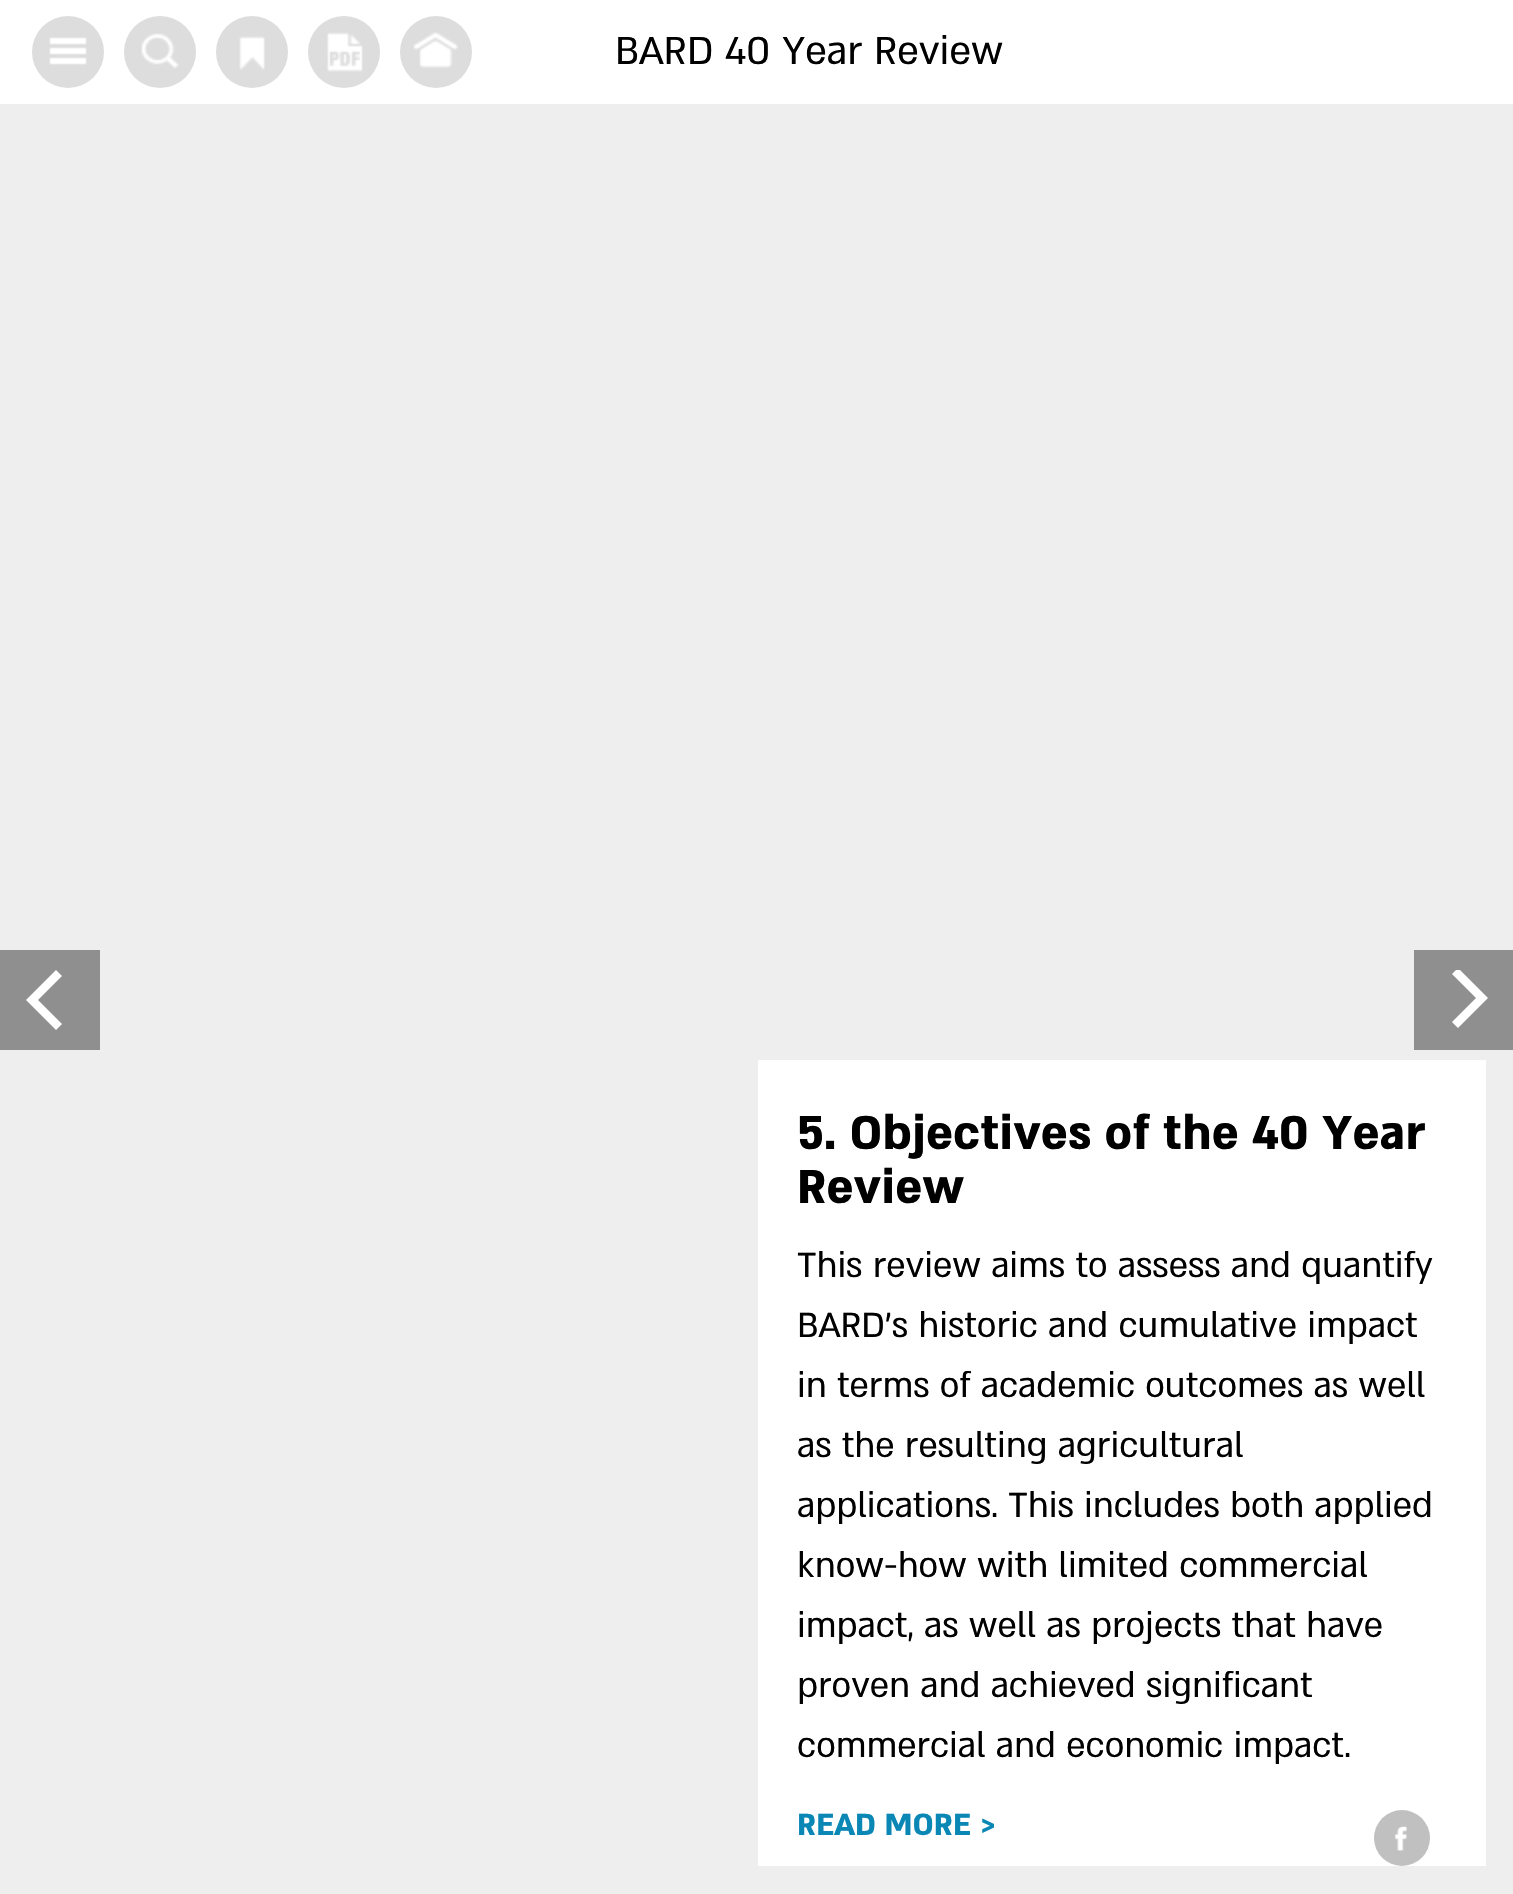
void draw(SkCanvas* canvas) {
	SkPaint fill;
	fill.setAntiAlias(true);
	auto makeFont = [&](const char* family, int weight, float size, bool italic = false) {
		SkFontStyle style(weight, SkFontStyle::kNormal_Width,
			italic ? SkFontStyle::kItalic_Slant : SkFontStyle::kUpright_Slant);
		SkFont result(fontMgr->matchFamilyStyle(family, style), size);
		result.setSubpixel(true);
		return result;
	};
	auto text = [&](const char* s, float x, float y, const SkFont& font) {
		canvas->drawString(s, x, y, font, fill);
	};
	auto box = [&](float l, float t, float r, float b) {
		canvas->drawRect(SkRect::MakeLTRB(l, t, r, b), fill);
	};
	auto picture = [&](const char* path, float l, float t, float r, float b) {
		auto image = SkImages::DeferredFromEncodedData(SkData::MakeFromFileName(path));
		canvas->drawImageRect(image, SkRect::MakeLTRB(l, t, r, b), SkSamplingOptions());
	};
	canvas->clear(0xFFFFFFFF);
	fill.setColor(0xFFDDDDDD);
	canvas->drawCircle(68, 52, 36, fill);
	picture("image0.png", 49, 37, 87, 65);
	canvas->drawCircle(160, 52, 36, fill);
	picture("image1.png", 141, 33, 179, 69);
	canvas->drawCircle(252, 52, 36, fill);
	picture("image2.png", 239, 36, 265, 70);
	canvas->drawCircle(344, 52, 36, fill);
	picture("image3.png", 327, 32, 363, 72);
	canvas->drawCircle(436, 52, 36, fill);
	picture("image4.png", 413, 32, 458, 68);
	fill.setColor(0xFFEEEEEE);
	box(0, 104, 1513, 1894);
	fill.setColor(0xFF8F8F8F);
	box(0, 950, 100, 1050);
	fill.setColor(0xFFFFFFFF);
	canvas->drawPath(SkPathBuilder().moveTo(26, 1000).lineTo(56, 1030).lineTo(62, 1024).lineTo(38, 1000).lineTo(62, 976).lineTo(56, 970).close().detach(), fill);
	fill.setColor(0xFF8F8F8F);
	box(1414, 950, 1513, 1050);
	canvas->save();
	canvas->clipRect(SkRect::MakeLTRB(1434, 970, 1494, 1030));
	fill.setColor(0xFFFFFFFF);
	canvas->drawPath(SkPathBuilder().moveTo(1488, 998).lineTo(1458, 968).lineTo(1452, 974).lineTo(1476, 998).lineTo(1452, 1022).lineTo(1458, 1028).close().detach(), fill);
	canvas->restore();
	box(758, 1060, 1486, 1866);
	fill.setColor(0xFFC0C0C0);
	canvas->drawCircle(1402, 1838, 28, fill);
	picture("image5.png", 1395, 1826, 1407, 1851);
	auto font1 = makeFont("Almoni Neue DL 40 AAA", 400, 44.75f);
	fill.setColor(0xFF000000);
	text("BARD 40 Year Review", 615, 64, font1);
	auto font2 = makeFont("Almoni Neue DL 40 AAA", 700, 54.4f);
	text("5. Objectives of the 40 Year", 797, 1149, font2);
	text("Review", 797, 1203, font2);
	auto font3 = makeFont("Almoni Neue DL 40 AAA", 400, 40);
	text("This review aims to assess and quantify", 797, 1277, font3);
	text("BARD’s historic and cumulative impact", 797, 1337, font3);
	text("in terms of academic outcomes as well", 797, 1397, font3);
	text("as the resulting agricultural", 797, 1457, font3);
	text("applications. This includes both applied", 797, 1517, font3);
	text("know-how with limited commercial", 797, 1577, font3);
	text("impact, as well as projects that have", 797, 1637, font3);
	text("proven and achieved significant", 797, 1697, font3);
	text("commercial and economic impact.", 797, 1757, font3);
	auto font4 = makeFont("Almoni Neue DL 40 AAA", 700, 35.25f);
	fill.setColor(0xFF0B87B5);
	text("READ MORE >", 797, 1835, font4);
}
